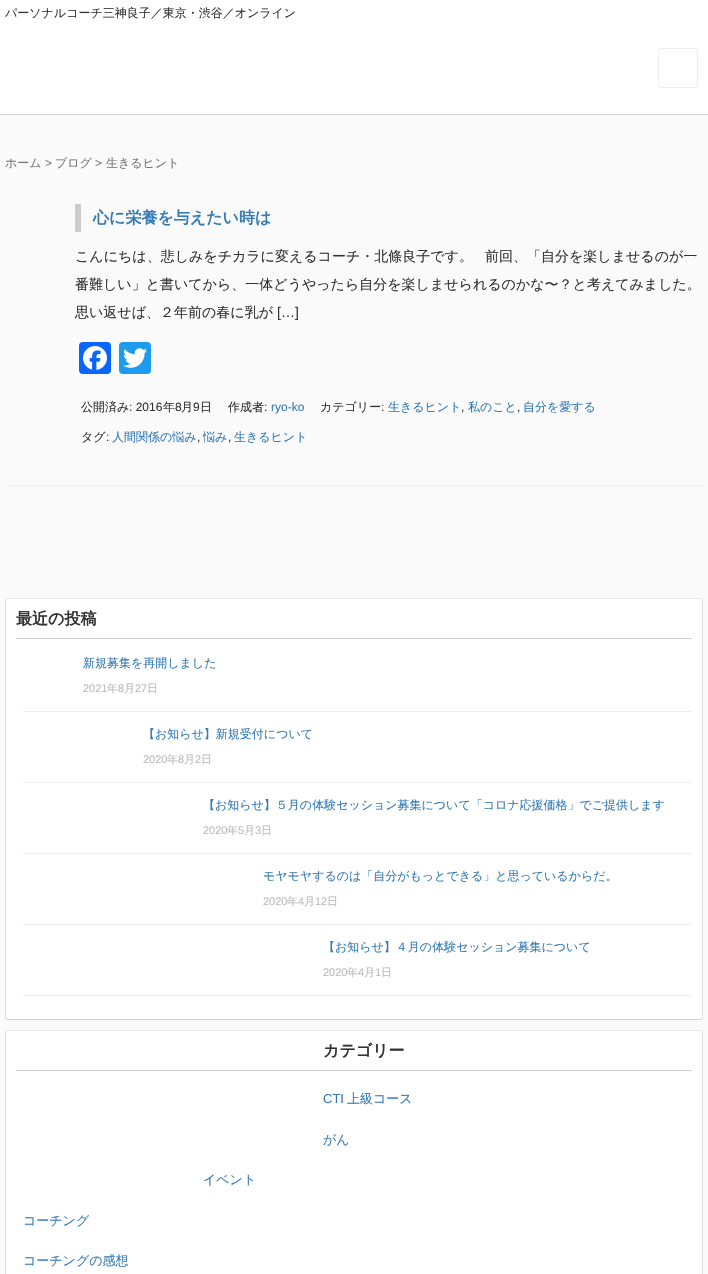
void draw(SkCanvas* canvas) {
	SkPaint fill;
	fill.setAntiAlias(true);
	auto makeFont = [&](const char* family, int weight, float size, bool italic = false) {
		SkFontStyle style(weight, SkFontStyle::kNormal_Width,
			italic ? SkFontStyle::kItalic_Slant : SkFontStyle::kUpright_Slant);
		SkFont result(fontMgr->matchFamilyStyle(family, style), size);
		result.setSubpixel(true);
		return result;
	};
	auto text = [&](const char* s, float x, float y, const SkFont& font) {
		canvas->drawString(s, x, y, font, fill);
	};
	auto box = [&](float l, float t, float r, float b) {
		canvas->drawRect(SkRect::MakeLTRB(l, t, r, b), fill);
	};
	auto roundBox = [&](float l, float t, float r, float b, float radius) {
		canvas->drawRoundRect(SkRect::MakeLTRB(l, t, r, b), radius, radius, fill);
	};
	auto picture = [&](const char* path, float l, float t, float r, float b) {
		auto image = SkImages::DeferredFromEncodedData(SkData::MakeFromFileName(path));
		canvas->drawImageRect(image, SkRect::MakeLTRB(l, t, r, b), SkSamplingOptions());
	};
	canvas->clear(0xFFFFFFFF);
	fill.setColor(0xFFD0D1D5);
	box(0, 114, 708, 115);
	fill.setStyle(SkPaint::kStroke_Style);
	fill.setStrokeWidth(1);
	fill.setColor(0xFFEEEEEE);
	canvas->drawRoundRect(SkRect::MakeLTRB(658.5f, 48.5f, 697.5f, 87.5f), 2.5f, 2.5f, fill);
	fill.setStyle(SkPaint::kFill_Style);
	fill.setColor(0xFFFAFAFA);
	box(0, 115, 708, 1274);
	fill.setColor(0xFFEEEEEE);
	box(5, 485, 703, 486);
	fill.setColor(0xFFCCCCCC);
	box(75, 204, 81, 232);
	fill.setColor(0xFF0866FF);
	roundBox(79, 342, 111, 374, 4);
	picture("image0.png", 83, 346, 107, 370);
	fill.setColor(0xFF1D9BF0);
	roundBox(119, 342, 151, 374, 4);
	picture("image1.png", 123, 348, 147, 368);
	fill.setColor(0xFFFFFFFF);
	roundBox(5, 598, 703, 1020, 3);
	fill.setStyle(SkPaint::kStroke_Style);
	fill.setColor(0xFFE5E6E9);
	canvas->drawPath(SkPathBuilder().moveTo(6, 599).lineTo(8, 598.5f).lineTo(700, 598.5f).lineTo(702, 599).detach(), fill);
	fill.setColor(0xFFDFE0E4);
	canvas->drawPath(SkPathBuilder().moveTo(702, 599).lineTo(702.5f, 601).lineTo(702.5f, 1017).lineTo(702, 1019).detach(), fill);
	fill.setColor(0xFFD0D1D5);
	canvas->drawPath(SkPathBuilder().moveTo(702, 1019).lineTo(700, 1019.5f).lineTo(8, 1019.5f).lineTo(6, 1019).detach(), fill);
	fill.setColor(0xFFDFE0E4);
	canvas->drawPath(SkPathBuilder().moveTo(6, 1019).lineTo(5.5f, 1017).lineTo(5.5f, 601).lineTo(6, 599).detach(), fill);
	fill.setStyle(SkPaint::kFill_Style);
	fill.setColor(0xFFCCCCCC);
	box(16, 638, 692, 639);
	fill.setColor(0xFFEEEEEE);
	box(23, 711, 692, 712);
	box(23, 782, 692, 783);
	box(23, 853, 692, 854);
	box(23, 924, 692, 925);
	box(23, 995, 692, 996);
	fill.setColor(0xFFFFFFFF);
	roundBox(5, 1030, 703, 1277, 3);
	fill.setStyle(SkPaint::kStroke_Style);
	fill.setColor(0xFFE5E6E9);
	canvas->drawPath(SkPathBuilder().moveTo(6, 1031).lineTo(8, 1030.5f).lineTo(700, 1030.5f).lineTo(702, 1031).detach(), fill);
	fill.setColor(0xFFDFE0E4);
	canvas->drawPath(SkPathBuilder().moveTo(702, 1031).lineTo(702.5f, 1033).lineTo(702.5f, 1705).lineTo(702, 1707).detach(), fill);
	canvas->drawPath(SkPathBuilder().moveTo(6, 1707).lineTo(5.5f, 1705).lineTo(5.5f, 1033).lineTo(6, 1031).detach(), fill);
	fill.setStyle(SkPaint::kFill_Style);
	fill.setColor(0xFFCCCCCC);
	box(16, 1070, 692, 1071);
	auto font1 = makeFont("WenQuanYi Zen Hei", 500, 12);
	fill.setColor(0xFF333333);
	text("パーソナルコーチ三神良子／東京・渋谷／オンライン", 5, 17, font1);
	fill.setColor(0xFF777777);
	text("ホーム", 5, 167, font1);
	auto font2 = makeFont("Liberation Sans", 400, 12);
	text(">", 45, 167, font2);
	text("ブログ", 55, 167, font1);
	text(">", 95, 167, font2);
	text("生きるヒント", 106, 167, font1);
	auto font3 = makeFont("WenQuanYi Zen Hei", 700, 16);
	fill.setColor(0xFF337AB7);
	text("心に栄養を与えたい時は", 93, 223, font3);
	auto font4 = makeFont("WenQuanYi Zen Hei", 500, 14);
	fill.setColor(0xFF333333);
	text("こんにちは、悲しみをチカラに変えるコーチ・北條良子です。", 75, 261, font4);
	text("前回、「自分を楽しませるのが一", 485, 261, font4);
	text("番難しい」と書いてから、一体どうやったら自分を楽しませられるのかな〜？と考えてみました。", 75, 289, font4);
	text("思い返せば、２年前の春に乳が", 75, 317, font4);
	auto font5 = makeFont("Liberation Sans", 400, 14);
	text("[…]", 277, 317, font5);
	text("公開済み", 81, 411, font1);
	text(": 2016", 129, 411, font2);
	text("年", 163, 411, font1);
	text("8", 175, 411, font2);
	text("月", 181, 411, font1);
	text("9", 193, 411, font2);
	text("日", 200, 411, font1);
	text("作成者", 228, 411, font1);
	text(":", 264, 411, font2);
	fill.setColor(0xFF337AB7);
	text("ryo-ko", 271, 411, font2);
	fill.setColor(0xFF333333);
	text("カテゴリー", 320, 411, font1);
	text(":", 381, 411, font2);
	fill.setColor(0xFF337AB7);
	text("生きるヒント", 388, 411, font1);
	fill.setColor(0xFF333333);
	text(",", 461, 411, font2);
	fill.setColor(0xFF337AB7);
	text("私のこと", 468, 411, font1);
	fill.setColor(0xFF333333);
	text(",", 517, 411, font2);
	fill.setColor(0xFF337AB7);
	text("自分を愛する", 523, 411, font1);
	fill.setColor(0xFF333333);
	text("タグ", 81, 441, font1);
	text(":", 106, 441, font2);
	fill.setColor(0xFF337AB7);
	text("人間関係の悩み", 112, 441, font1);
	fill.setColor(0xFF333333);
	text(",", 197, 441, font2);
	fill.setColor(0xFF337AB7);
	text("悩み", 203, 441, font1);
	fill.setColor(0xFF333333);
	text(",", 228, 441, font2);
	fill.setColor(0xFF337AB7);
	text("生きるヒント", 234, 441, font1);
	fill.setColor(0xFF333333);
	text("最近の投稿", 16, 624, font3);
	fill.setColor(0xFF337AB7);
	text("新規募集を再開しました", 83, 667, font1);
	auto font6 = makeFont("Liberation Sans", 400, 11);
	fill.setColor(0xFFBBBBBB);
	text("2021", 83, 692, font6);
	auto font7 = makeFont("WenQuanYi Zen Hei", 500, 11);
	text("年", 107, 692, font7);
	text("8", 118, 692, font6);
	text("月", 124, 692, font7);
	text("27", 135, 692, font6);
	text("日", 147, 692, font7);
	fill.setColor(0xFF337AB7);
	text("【お知らせ】新規受付について", 143, 738, font1);
	fill.setColor(0xFFBBBBBB);
	text("2020", 143, 763, font6);
	text("年", 167, 763, font7);
	text("8", 178, 763, font6);
	text("月", 184, 763, font7);
	text("2", 195, 763, font6);
	text("日", 201, 763, font7);
	fill.setColor(0xFF337AB7);
	text("【お知らせ】５月の体験セッション募集について「コロナ応援価格」でご提供します", 203, 809, font1);
	fill.setColor(0xFFBBBBBB);
	text("2020", 203, 834, font6);
	text("年", 227, 834, font7);
	text("5", 238, 834, font6);
	text("月", 244, 834, font7);
	text("3", 255, 834, font6);
	text("日", 261, 834, font7);
	fill.setColor(0xFF337AB7);
	text("モヤモヤするのは「自分がもっとできる」と思っているからだ。", 263, 880, font1);
	fill.setColor(0xFFBBBBBB);
	text("2020", 263, 905, font6);
	text("年", 287, 905, font7);
	text("4", 298, 905, font6);
	text("月", 304, 905, font7);
	text("12", 315, 905, font6);
	text("日", 327, 905, font7);
	fill.setColor(0xFF337AB7);
	text("【お知らせ】４月の体験セッション募集について", 323, 951, font1);
	fill.setColor(0xFFBBBBBB);
	text("2020", 323, 976, font6);
	text("年", 347, 976, font7);
	text("4", 358, 976, font6);
	text("月", 364, 976, font7);
	text("1", 375, 976, font6);
	text("日", 381, 976, font7);
	fill.setColor(0xFF333333);
	text("カテゴリー", 323, 1056, font3);
	auto font8 = makeFont("Liberation Sans", 400, 13);
	fill.setColor(0xFF337AB7);
	text("CTI", 323, 1103, font8);
	auto font9 = makeFont("WenQuanYi Zen Hei", 500, 13);
	text("上級コース", 347, 1103, font9);
	text("がん", 323, 1144, font9);
	text("イベント", 203, 1184, font9);
	text("コーチング", 23, 1225, font9);
	text("コーチングの感想", 23, 1265, font9);
}
